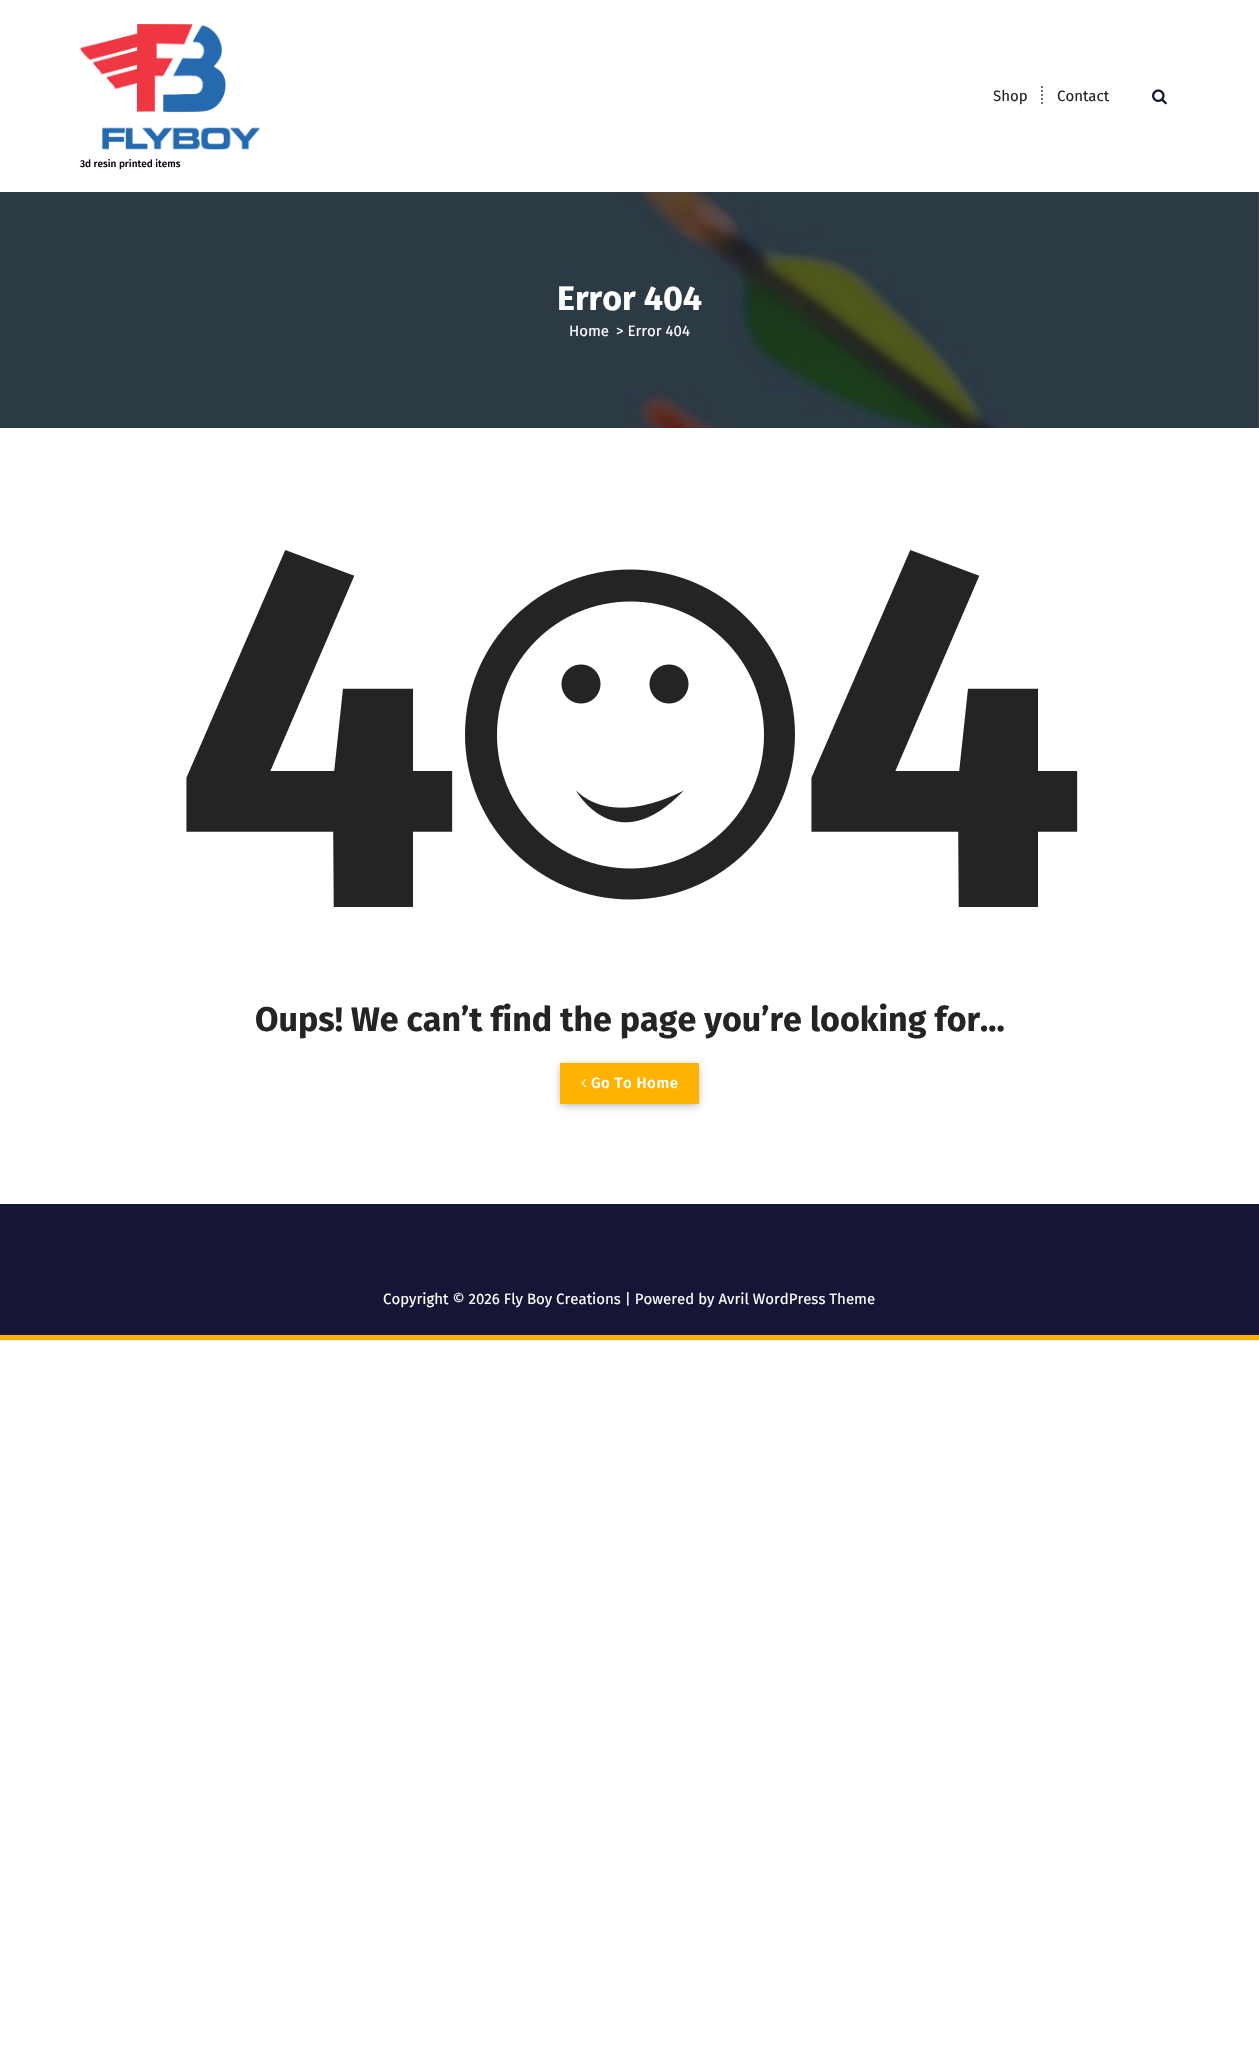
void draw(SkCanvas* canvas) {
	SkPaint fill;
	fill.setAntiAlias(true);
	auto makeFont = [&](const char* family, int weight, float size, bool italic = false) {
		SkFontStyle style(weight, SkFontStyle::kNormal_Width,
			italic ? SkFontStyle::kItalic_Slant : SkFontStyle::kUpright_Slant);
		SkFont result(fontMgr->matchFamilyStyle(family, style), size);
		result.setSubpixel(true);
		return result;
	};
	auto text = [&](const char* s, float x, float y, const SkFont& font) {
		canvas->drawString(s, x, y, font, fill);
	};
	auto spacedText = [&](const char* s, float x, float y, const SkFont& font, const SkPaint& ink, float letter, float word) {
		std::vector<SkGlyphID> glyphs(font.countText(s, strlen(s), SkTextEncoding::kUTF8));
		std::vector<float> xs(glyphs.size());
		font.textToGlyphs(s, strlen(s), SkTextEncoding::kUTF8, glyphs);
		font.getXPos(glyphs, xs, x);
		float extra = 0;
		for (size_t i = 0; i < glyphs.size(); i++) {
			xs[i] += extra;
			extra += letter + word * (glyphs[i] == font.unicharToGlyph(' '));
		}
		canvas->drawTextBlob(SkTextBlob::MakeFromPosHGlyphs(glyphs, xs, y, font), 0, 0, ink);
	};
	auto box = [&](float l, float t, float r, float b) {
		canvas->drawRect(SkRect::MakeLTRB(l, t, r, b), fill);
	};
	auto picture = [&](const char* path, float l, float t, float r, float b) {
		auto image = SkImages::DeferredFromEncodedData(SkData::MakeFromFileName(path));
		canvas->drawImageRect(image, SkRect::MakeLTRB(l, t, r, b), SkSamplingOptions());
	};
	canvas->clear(0xFFFFFFFF);
	fill.setStyle(SkPaint::kStroke_Style);
	fill.setStrokeWidth(2);
	fill.setColor(0xFF717171);
	fill.setPathEffect(SkDashPathEffect::Make({{2, 2}}, 0));
	canvas->drawPath(SkPathBuilder().moveTo(1042, 86).lineTo(1042, 106).detach(), fill);
	fill.setPathEffect(nullptr);
	picture("image0.png", 1152, 89, 1167, 105);
	picture("image1.png", 80, 24, 260, 150);
	picture("image2.png", 0, 192, 1259, 428);
	picture("image3.png", 465, 569, 795, 900);
	fill.setStyle(SkPaint::kFill_Style);
	fill.setColor(0x52000000);
	fill.setMaskFilter(SkMaskFilter::MakeBlur(kNormal_SkBlurStyle, 4));
	canvas->drawRect(SkRect::MakeLTRB(561, 1066, 698, 1105), fill);
	fill.setMaskFilter(nullptr);
	fill.setColor(0xFFFEB201);
	box(560, 1063, 699, 1104);
	picture("image4.png", 581, 1079, 587, 1088);
	fill.setColor(0xFF151535);
	box(0, 1204, 1259, 1335);
	fill.setColor(0xFFFEB201);
	box(0, 1335, 1259, 1340);
	auto font1 = makeFont("Fira Sans", 400, 15);
	fill.setColor(0xFF242424);
	text("Shop", 993, 101, font1);
	text("Contact", 1057, 101, font1);
	auto font2 = makeFont("Fira Sans", 500, 10);
	fill.setColor(0xFF0F000E);
	text("3d resin printed items", 80, 167, font2);
	auto font3 = makeFont("Fira Sans", 700, 34);
	fill.setColor(0xFFFFFFFF);
	text("Error 404", 557, 310, font3);
	text("Home", 569, 336, font1);
	text("> Error 404", 616, 336, font1);
	auto font4 = makeFont("Fira Sans", 700, 515);
	fill.setColor(0xFF242424);
	text("4", 172, 907, font4);
	text("4", 797, 907, font4);
	text("Oups! We can’t find the page you’re looking for…", 255, 1031, font3);
	auto font5 = makeFont("Fira Sans", 500, 15);
	fill.setColor(0xFFFFFFFF);
	spacedText("Go To Home", 591, 1088, font5, fill, 0.5f, 0);
	text("Copyright © 2026 Fly Boy Creations | Powered by Avril WordPress Theme", 383, 1304, font1);
}
